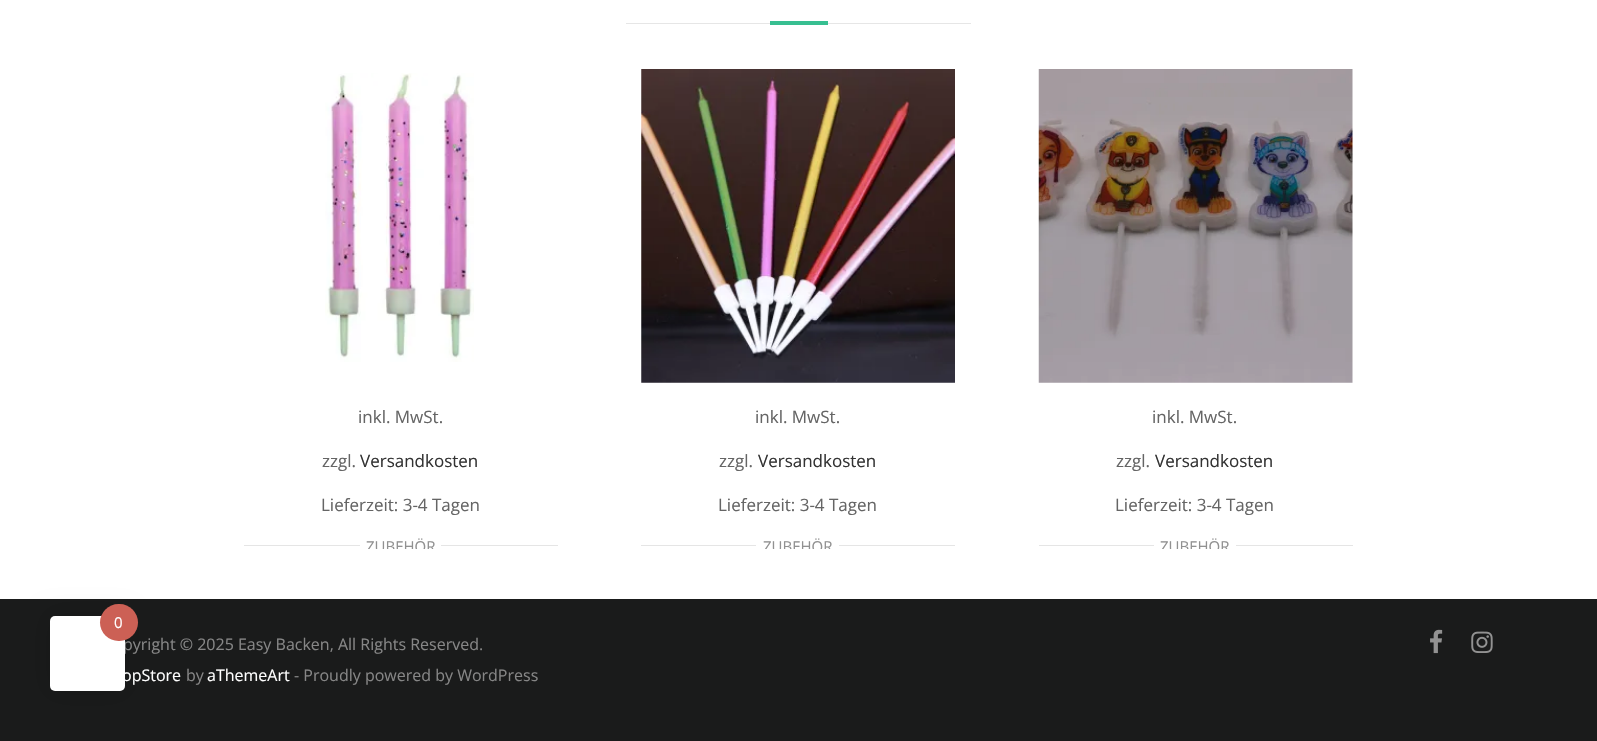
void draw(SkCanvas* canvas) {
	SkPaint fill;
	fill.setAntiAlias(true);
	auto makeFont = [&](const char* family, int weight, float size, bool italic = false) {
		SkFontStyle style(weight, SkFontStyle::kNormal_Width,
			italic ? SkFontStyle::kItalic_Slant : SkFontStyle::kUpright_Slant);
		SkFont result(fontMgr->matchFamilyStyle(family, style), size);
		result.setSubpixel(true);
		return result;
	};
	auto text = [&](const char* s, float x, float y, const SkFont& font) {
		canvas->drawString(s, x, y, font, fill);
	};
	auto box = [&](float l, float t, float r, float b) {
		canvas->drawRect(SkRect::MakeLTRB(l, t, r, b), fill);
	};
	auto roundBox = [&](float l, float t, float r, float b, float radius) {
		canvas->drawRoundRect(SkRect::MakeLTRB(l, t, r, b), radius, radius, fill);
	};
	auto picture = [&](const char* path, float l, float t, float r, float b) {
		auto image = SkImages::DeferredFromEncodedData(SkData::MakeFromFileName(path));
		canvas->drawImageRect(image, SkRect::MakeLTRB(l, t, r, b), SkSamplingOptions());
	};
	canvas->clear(0xFFFFFFFF);
	fill.setColor(0xFF1A1B1B);
	box(0, 599, 1597, 741);
	fill.setColor(0x26000000);
	fill.setMaskFilter(SkMaskFilter::MakeBlur(kNormal_SkBlurStyle, 12.5f));
	canvas->drawRoundRect(SkRect::MakeLTRB(50, 616, 125, 691), 5, 5, fill);
	fill.setMaskFilter(nullptr);
	fill.setColor(0xFFE6E6E6);
	box(626, 23, 971, 24);
	fill.setColor(0xFF37BF91);
	box(770, 21, 828, 25);
	picture("image0.png", 325, 73, 474, 362);
	fill.setColor(0xFFE5E5E5);
	box(244, 545, 558, 546);
	fill.setColor(0xFFFFFFFF);
	box(360, 545, 441, 546);
	picture("image1.png", 641, 69, 955, 383);
	fill.setColor(0xFFE5E5E5);
	box(641, 545, 955, 546);
	fill.setColor(0xFFFFFFFF);
	box(756, 545, 839, 546);
	picture("image2.png", 1038, 69, 1353, 383);
	fill.setColor(0xFFE5E5E5);
	box(1039, 545, 1353, 546);
	fill.setColor(0xFFFFFFFF);
	box(1154, 545, 1236, 546);
	picture("image3.png", 1430, 629, 1443, 654);
	picture("image4.png", 1471, 631, 1493, 653);
	auto font1 = makeFont("Open Sans", 400, 17);
	fill.setColor(0xFF656565);
	text("inkl. MwSt.", 358, 423, font1);
	text("zzgl.", 322, 467, font1);
	fill.setColor(0xFF333333);
	text("Versandkosten", 360, 467, font1);
	fill.setColor(0xFF656565);
	text("Lieferzeit: 3-4 Tagen", 321, 511, font1);
	canvas->save();
	canvas->clipRect(SkRect::MakeLTRB(224, 49, 578, 549));
	auto font2 = makeFont("Open Sans", 400, 15);
	fill.setColor(0xFF919191);
	text("ZUBEHÖR", 366, 552, font2);
	canvas->restore();
	fill.setColor(0xFF656565);
	text("inkl. MwSt.", 755, 423, font1);
	text("zzgl.", 719, 467, font1);
	fill.setColor(0xFF333333);
	text("Versandkosten", 758, 467, font1);
	fill.setColor(0xFF656565);
	text("Lieferzeit: 3-4 Tagen", 718, 511, font1);
	canvas->save();
	canvas->clipRect(SkRect::MakeLTRB(621, 49, 975, 549));
	fill.setColor(0xFF919191);
	text("ZUBEHÖR", 763, 552, font2);
	canvas->restore();
	fill.setColor(0xFF656565);
	text("inkl. MwSt.", 1152, 423, font1);
	text("zzgl.", 1116, 467, font1);
	fill.setColor(0xFF333333);
	text("Versandkosten", 1155, 467, font1);
	fill.setColor(0xFF656565);
	text("Lieferzeit: 3-4 Tagen", 1115, 511, font1);
	canvas->save();
	canvas->clipRect(SkRect::MakeLTRB(1019, 49, 1373, 549));
	fill.setColor(0xFF919191);
	text("ZUBEHÖR", 1160, 552, font2);
	canvas->restore();
	auto font3 = makeFont("Open Sans", 400, 16);
	fill.setColor(0xFF868686);
	text("pyright © 2025 Easy Backen, All Rights Reserved.", 123, 650, font3);
	fill.setColor(0xFFFFFFFF);
	roundBox(50, 616, 125, 691, 5);
	fill.setColor(0xFFCC6055);
	roundBox(100, 604, 138, 641, 18.5f);
	fill.setColor(0xFFFFFFFF);
	text("0", 114, 628, font2);
	text("opStore", 122, 681, font3);
	fill.setColor(0xFF868686);
	text("by", 186, 681, font3);
	fill.setColor(0xFFFFFFFF);
	text("aThemeArt", 207, 681, font3);
	fill.setColor(0xFF868686);
	text("- Proudly powered by WordPress", 294, 681, font3);
}
